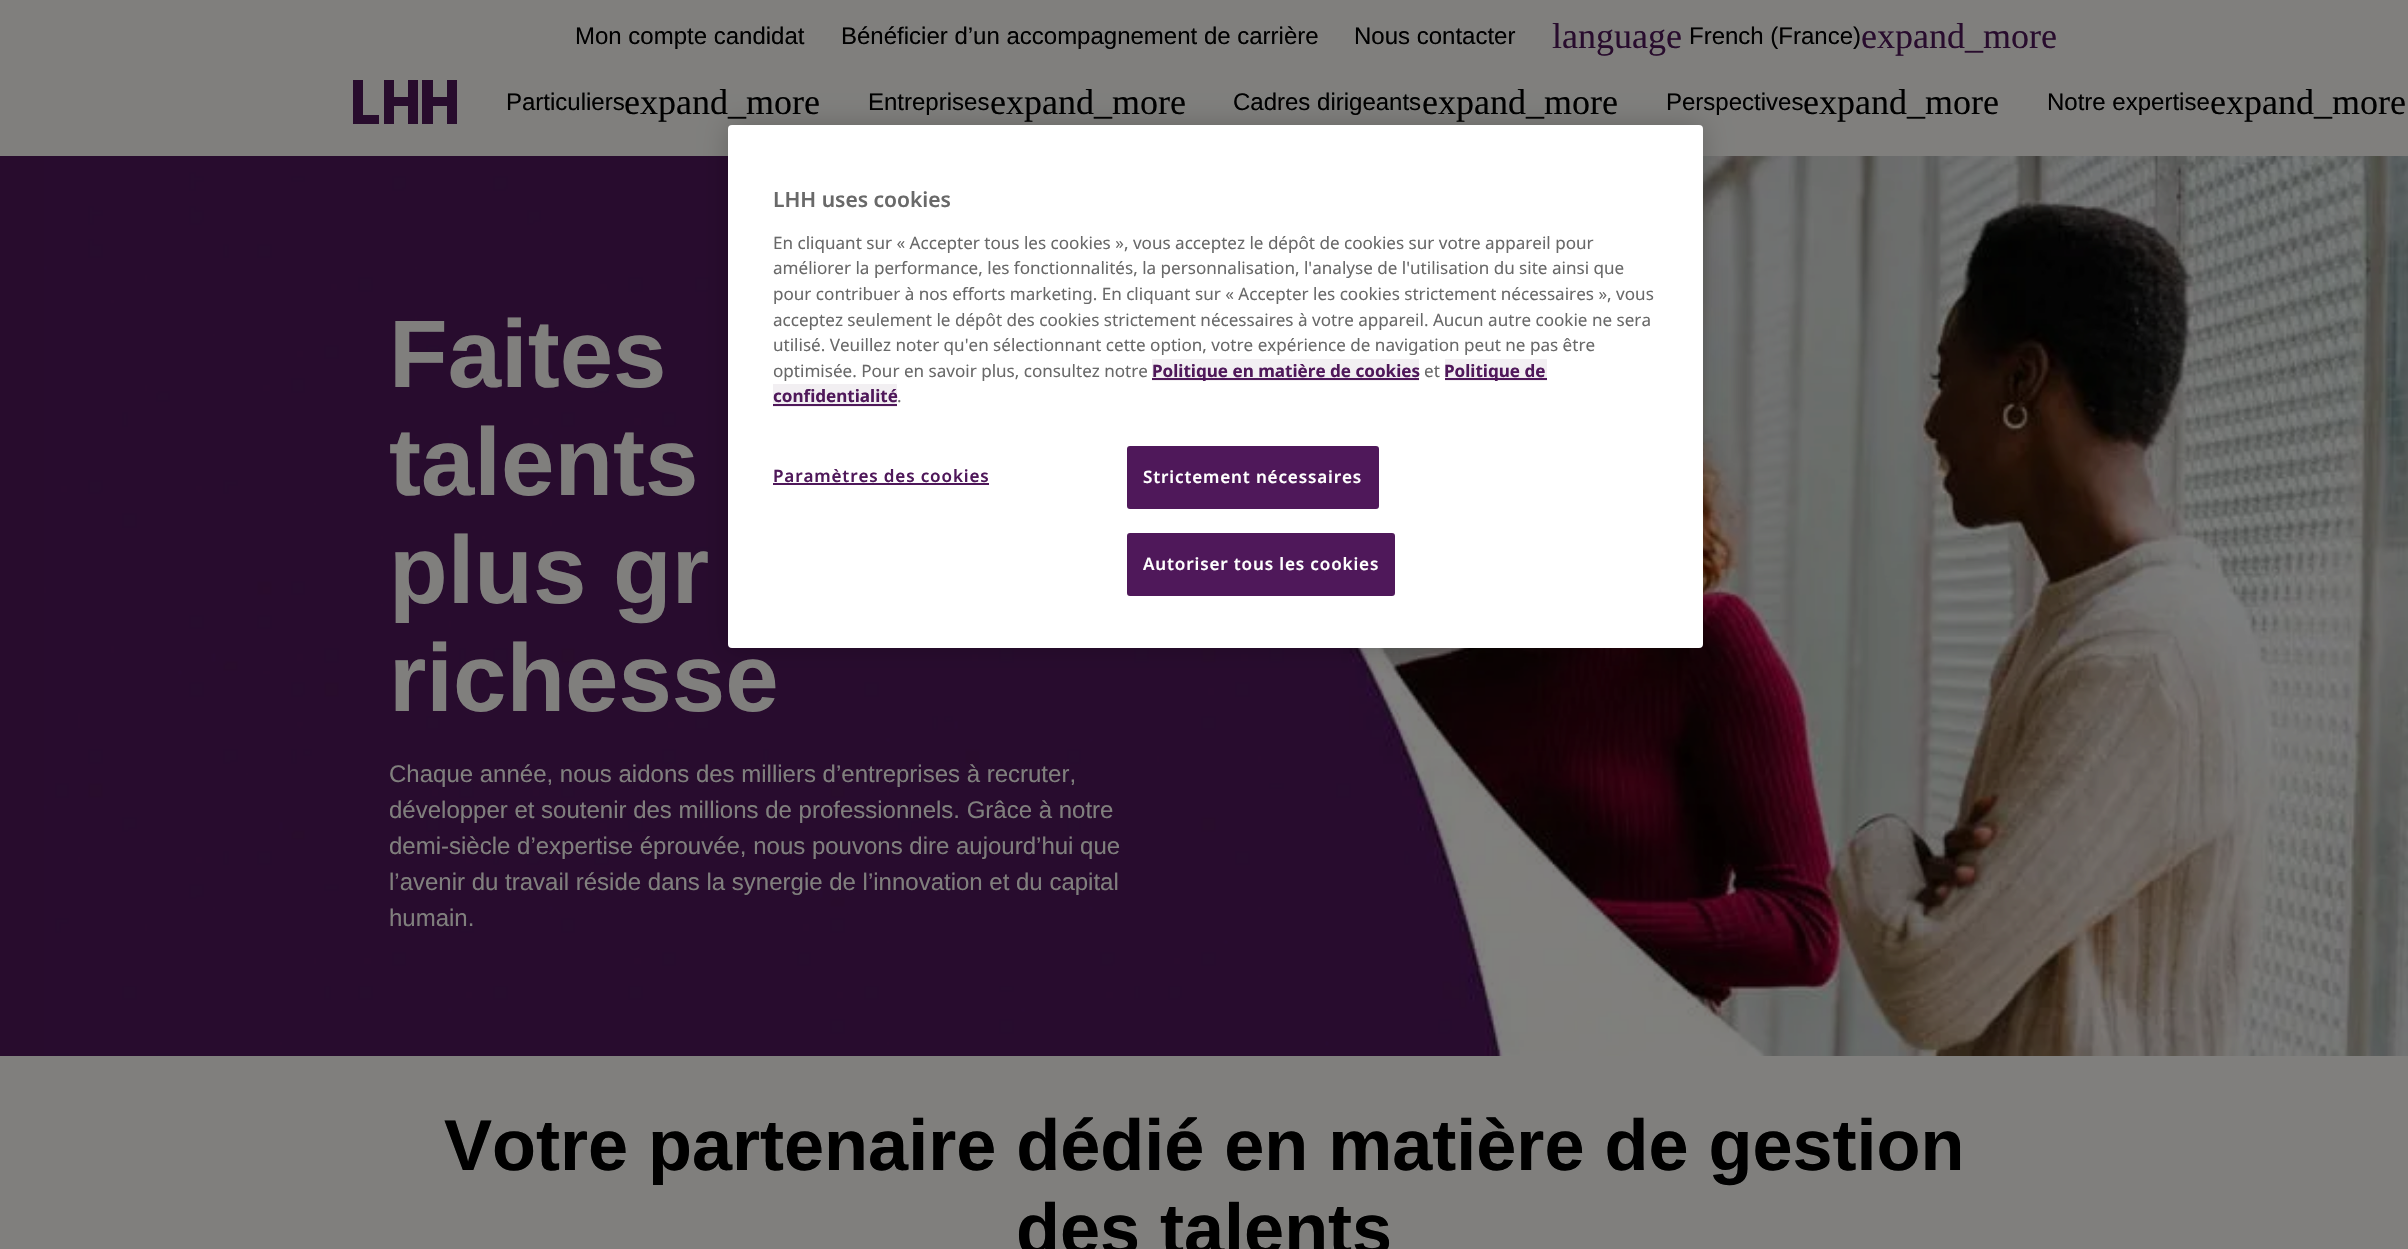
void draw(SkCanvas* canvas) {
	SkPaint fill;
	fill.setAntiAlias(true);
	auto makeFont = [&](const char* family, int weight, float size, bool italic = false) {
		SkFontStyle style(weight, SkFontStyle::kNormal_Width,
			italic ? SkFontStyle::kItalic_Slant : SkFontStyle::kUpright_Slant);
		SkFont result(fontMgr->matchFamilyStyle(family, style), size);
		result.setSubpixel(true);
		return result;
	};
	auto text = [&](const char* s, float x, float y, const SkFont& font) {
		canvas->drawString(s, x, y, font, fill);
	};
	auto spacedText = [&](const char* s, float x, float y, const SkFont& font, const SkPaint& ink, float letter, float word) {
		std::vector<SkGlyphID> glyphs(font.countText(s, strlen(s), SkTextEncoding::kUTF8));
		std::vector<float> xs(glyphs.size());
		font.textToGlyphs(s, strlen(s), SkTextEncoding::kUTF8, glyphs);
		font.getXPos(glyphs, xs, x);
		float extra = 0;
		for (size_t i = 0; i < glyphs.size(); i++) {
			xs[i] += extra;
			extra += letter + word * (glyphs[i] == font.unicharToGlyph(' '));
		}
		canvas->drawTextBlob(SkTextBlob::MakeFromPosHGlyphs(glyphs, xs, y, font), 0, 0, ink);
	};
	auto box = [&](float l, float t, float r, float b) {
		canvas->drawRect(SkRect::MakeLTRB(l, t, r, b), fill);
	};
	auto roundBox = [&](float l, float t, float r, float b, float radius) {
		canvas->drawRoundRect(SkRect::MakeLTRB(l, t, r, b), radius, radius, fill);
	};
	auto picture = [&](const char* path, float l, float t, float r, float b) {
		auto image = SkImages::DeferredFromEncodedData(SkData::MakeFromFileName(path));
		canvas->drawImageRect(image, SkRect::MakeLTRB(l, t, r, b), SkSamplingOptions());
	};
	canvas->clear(0xFF807F7D);
	canvas->save();
	canvas->clipRect(SkRect::MakeLTRB(353, 80, 458, 125));
	fill.setColor(0xFF280C2D);
	canvas->drawPath(SkPathBuilder(SkPathFillType::kEvenOdd).moveTo(352, 80).lineTo(363, 80).lineTo(363, 115).lineTo(379, 115).lineTo(379, 124).lineTo(352, 124).close().moveTo(384, 80).lineTo(394, 80).lineTo(394, 97).lineTo(408, 97).lineTo(408, 80).lineTo(418, 80).lineTo(418, 124).lineTo(408, 124).lineTo(408, 106).lineTo(394, 106).lineTo(394, 124).lineTo(384, 124).close().moveTo(433, 80).lineTo(422, 80).lineTo(422, 124).lineTo(433, 124).lineTo(433, 106).lineTo(447, 106).lineTo(447, 124).lineTo(457, 124).lineTo(457, 80).lineTo(447, 80).lineTo(447, 97).lineTo(433, 97).close().detach(), fill);
	canvas->restore();
	box(0, 156, 44, 1056);
	picture("image0.png", 44, 156, 2408, 1056);
	fill.setColor(0x33000000);
	fill.setMaskFilter(SkMaskFilter::MakeBlur(kNormal_SkBlurStyle, 13.5f));
	canvas->drawRoundRect(SkRect::MakeLTRB(728, 125, 1703, 648), 4, 4, fill);
	fill.setMaskFilter(nullptr);
	auto font1 = makeFont("Liberation Sans", 400, 24);
	fill.setColor(0xFF000000);
	text("Mon compte candidat", 575, 44, font1);
	text("Bénéficier d’un accompagnement de carrière", 841, 44, font1);
	text("Nous contacter", 1354, 44, font1);
	auto font2 = makeFont("Liberation Serif", 400, 36);
	fill.setColor(0xFF280C2D);
	text("language", 1552, 48, font2);
	fill.setColor(0xFF000000);
	text("French (France)", 1689, 44, font1);
	fill.setColor(0xFF280C2D);
	text("expand_more", 1861, 48, font2);
	fill.setColor(0xFF000000);
	text("Particuliers", 506, 110, font1);
	text("expand_more", 624, 114, font2);
	text("Entreprises", 868, 110, font1);
	text("expand_more", 990, 114, font2);
	text("Cadres dirigeants", 1233, 110, font1);
	text("expand_more", 1422, 114, font2);
	text("Perspectives", 1666, 110, font1);
	text("expand_more", 1803, 114, font2);
	text("Notre expertise", 2047, 110, font1);
	text("expand_more", 2210, 114, font2);
	auto font3 = makeFont("Liberation Sans", 700, 96);
	fill.setColor(0xFF807F7D);
	text("Faites", 389, 387, font3);
	text("talents", 389, 495, font3);
	text("plus gr", 389, 603, font3);
	text("richesse", 389, 711, font3);
	text("Chaque année, nous aidons des milliers d’entreprises à recruter,", 389, 782, font1);
	text("développer et soutenir des millions de professionnels. Grâce à notre", 389, 818, font1);
	text("demi-siècle d’expertise éprouvée, nous pouvons dire aujourd’hui que", 389, 854, font1);
	text("l’avenir du travail réside dans la synergie de l’innovation et du capital", 389, 890, font1);
	text("humain.", 389, 926, font1);
	auto font4 = makeFont("Liberation Sans", 700, 72);
	fill.setColor(0xFF000000);
	text("Votre partenaire dédié en matière de gestion", 444, 1170, font4);
	text("des talents", 1016, 1254, font4);
	fill.setColor(0xFFFFFFFF);
	roundBox(728, 125, 1703, 648, 4);
	auto font5 = makeFont("Noto Sans", 600, 21);
	fill.setColor(0xFF696969);
	text("LHH uses cookies", 773, 207, font5);
	auto font6 = makeFont("Noto Sans", 400, 17.07f);
	text("En cliquant sur « Accepter tous les cookies », vous acceptez le dépôt de cookies sur votre appareil pour", 773, 249, font6);
	text("améliorer la performance, les fonctionnalités, la personnalisation, l'analyse de l'utilisation du site ainsi que", 773, 274, font6);
	text("pour contribuer à nos efforts marketing. En cliquant sur « Accepter les cookies strictement nécessaires », vous", 773, 300, font6);
	text("acceptez seulement le dépôt des cookies strictement nécessaires à votre appareil. Aucun autre cookie ne sera", 773, 326, font6);
	text("utilisé. Veuillez noter qu'en sélectionnant cette option, votre expérience de navigation peut ne pas être", 773, 351, font6);
	text("optimisée. Pour en savoir plus, consultez notre", 773, 377, font6);
	fill.setColor(0xFFF2EFF2);
	box(1152, 359, 1419, 381);
	fill.setColor(0xFF4F185A);
	box(1152, 378, 1419, 380);
	auto font7 = makeFont("Noto Sans", 700, 17.07f);
	text("Politique en matière de cookies", 1152, 377, font7);
	fill.setColor(0xFF696969);
	text("et", 1424, 377, font6);
	fill.setColor(0xFFF2EFF2);
	box(1445, 359, 1547, 381);
	fill.setColor(0xFF4F185A);
	box(1445, 378, 1547, 380);
	text("Politique de", 1444, 377, font7);
	fill.setColor(0xFFF2EFF2);
	box(773, 384, 897, 407);
	fill.setColor(0xFF4F185A);
	text("confidentialité", 773, 402, font7);
	box(773, 404, 897, 406);
	fill.setColor(0xFF696969);
	text(".", 897, 402, font6);
	auto font8 = makeFont("Noto Sans", 600, 17.07f);
	fill.setColor(0xFF4F185A);
	spacedText("Paramètres des cookies", 773, 482, font8, fill, 0.85f, 0);
	box(773, 483, 989, 485);
	canvas->drawRoundRect(SkRect::MakeLTRB(1128, 447, 1378, 508), 2, 2, fill);
	fill.setStyle(SkPaint::kStroke_Style);
	fill.setStrokeWidth(2);
	canvas->drawRoundRect(SkRect::MakeLTRB(1128, 447, 1378, 508), 2, 2, fill);
	fill.setStyle(SkPaint::kFill_Style);
	fill.setColor(0xFFFFFFFF);
	spacedText("Strictement nécessaires", 1143, 483, font8, fill, 0.85f, 0);
	fill.setColor(0xFF4F185A);
	canvas->drawRoundRect(SkRect::MakeLTRB(1128, 534, 1394, 595), 2, 2, fill);
	fill.setStyle(SkPaint::kStroke_Style);
	canvas->drawRoundRect(SkRect::MakeLTRB(1128, 534, 1394, 595), 2, 2, fill);
	fill.setStyle(SkPaint::kFill_Style);
	fill.setColor(0xFFFFFFFF);
	spacedText("Autoriser tous les cookies", 1143, 570, font8, fill, 0.85f, 0);
}
